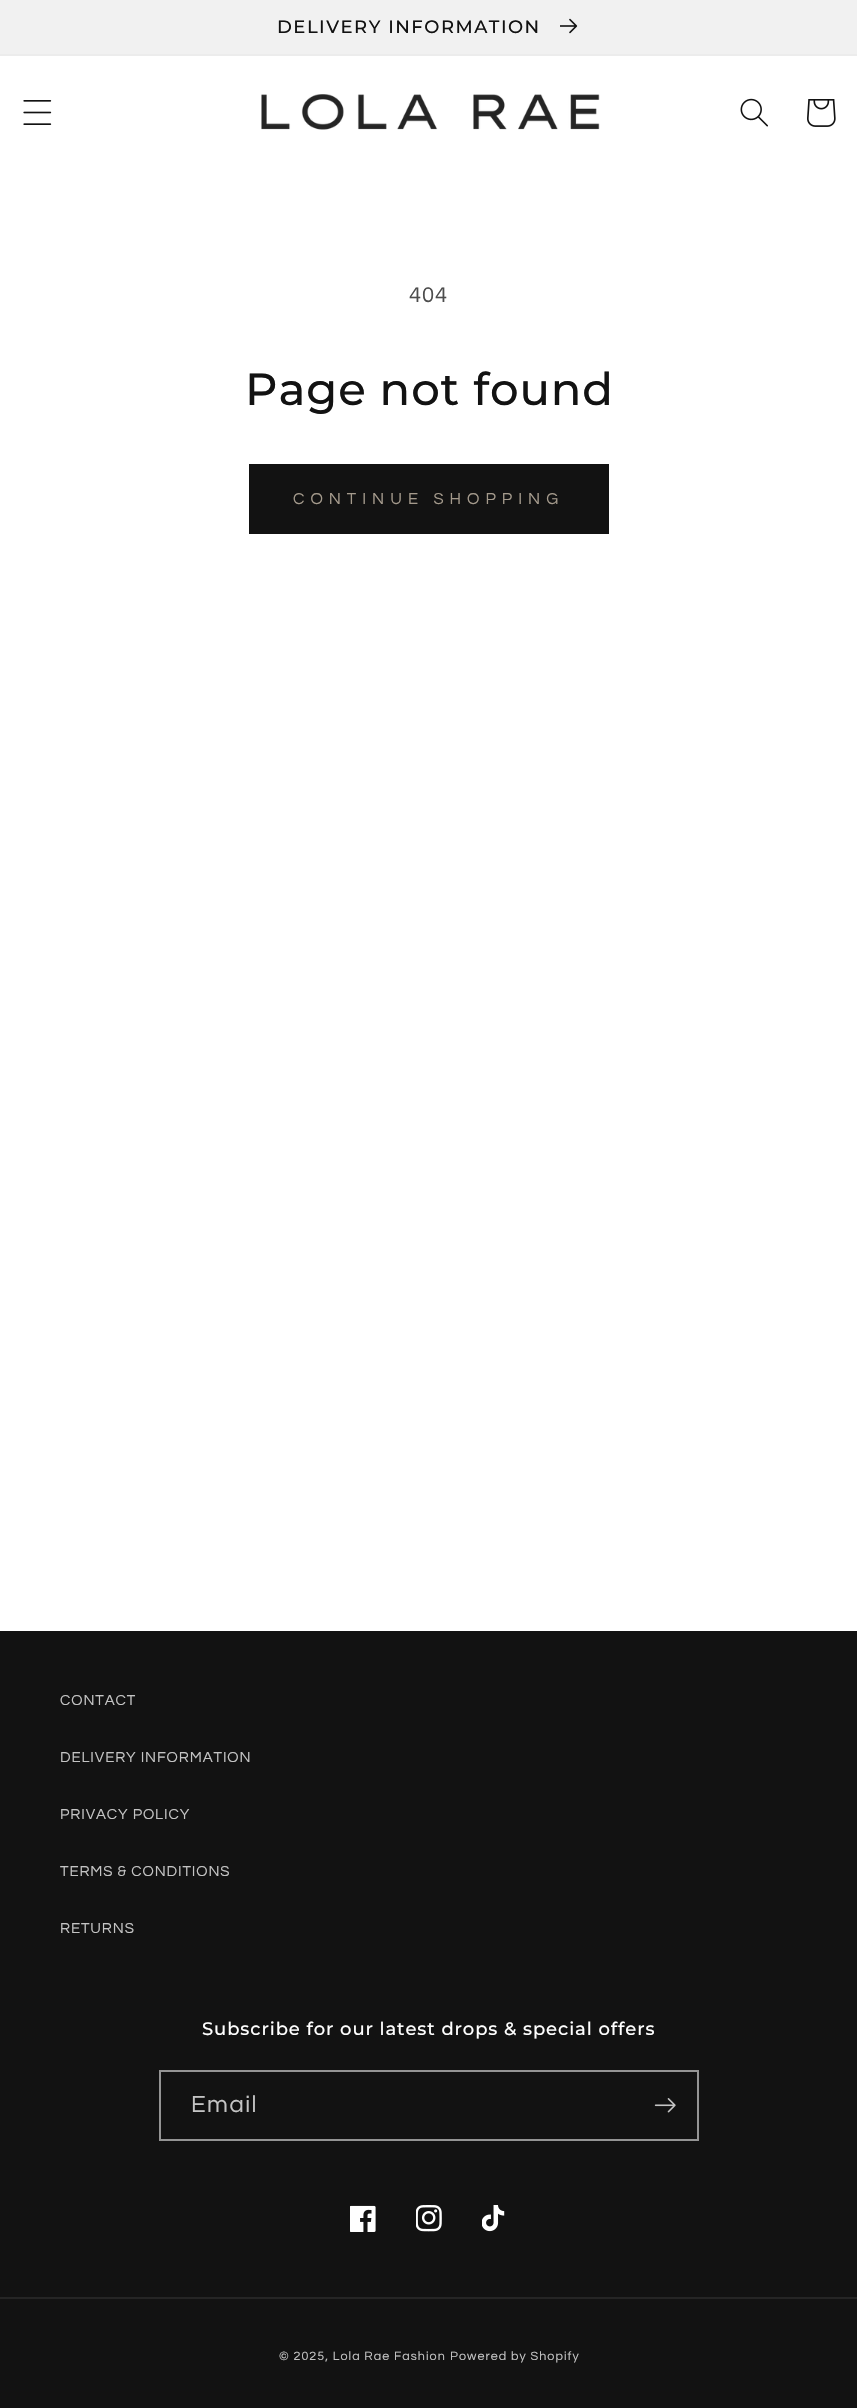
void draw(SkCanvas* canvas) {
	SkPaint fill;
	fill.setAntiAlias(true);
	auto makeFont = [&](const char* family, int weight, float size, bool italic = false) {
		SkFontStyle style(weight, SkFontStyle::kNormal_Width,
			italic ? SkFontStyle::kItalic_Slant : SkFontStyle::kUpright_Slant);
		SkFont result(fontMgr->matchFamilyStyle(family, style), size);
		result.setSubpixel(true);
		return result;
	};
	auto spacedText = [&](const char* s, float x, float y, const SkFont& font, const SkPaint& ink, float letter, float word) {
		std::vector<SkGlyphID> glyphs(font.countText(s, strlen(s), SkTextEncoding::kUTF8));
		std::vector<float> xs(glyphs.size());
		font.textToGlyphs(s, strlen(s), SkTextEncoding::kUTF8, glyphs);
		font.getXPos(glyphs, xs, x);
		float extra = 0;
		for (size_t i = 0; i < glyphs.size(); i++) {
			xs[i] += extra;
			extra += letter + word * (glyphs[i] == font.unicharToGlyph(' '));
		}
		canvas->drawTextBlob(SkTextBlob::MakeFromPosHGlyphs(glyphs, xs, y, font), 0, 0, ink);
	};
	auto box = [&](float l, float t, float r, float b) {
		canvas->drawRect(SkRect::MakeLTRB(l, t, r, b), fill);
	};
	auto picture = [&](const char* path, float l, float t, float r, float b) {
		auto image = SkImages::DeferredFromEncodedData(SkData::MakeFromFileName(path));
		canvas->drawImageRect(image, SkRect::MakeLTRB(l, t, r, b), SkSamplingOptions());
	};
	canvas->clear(0xFFFFFFFF);
	fill.setColor(0xFFECECEC);
	box(0, 54, 857, 56);
	fill.setColor(0xFFF1F1F1);
	box(0, 0, 857, 54);
	picture("image0.png", 560, 18, 578, 34);
	picture("image1.png", 23, 100, 52, 125);
	picture("image2.png", 261, 94, 600, 130);
	picture("image3.png", 740, 98, 768, 127);
	picture("image4.png", 807, 99, 836, 127);
	fill.setColor(0xFF121212);
	box(249, 464, 609, 534);
	box(0, 1631, 857, 2408);
	fill.setStyle(SkPaint::kStroke_Style);
	fill.setStrokeWidth(2);
	fill.setColor(0xFF949494);
	canvas->drawRect(SkRect::MakeLTRB(160, 2071, 698, 2140), fill);
	picture("image5.png", 654, 2098, 676, 2113);
	picture("image6.png", 350, 2205, 376, 2232);
	picture("image7.png", 416, 2205, 442, 2232);
	picture("image8.png", 482, 2205, 505, 2232);
	fill.setStyle(SkPaint::kFill_Style);
	fill.setColor(0xFF252525);
	box(0, 2297, 857, 2299);
	auto font1 = makeFont("Montserrat", 500, 18);
	fill.setColor(0xFF121212);
	spacedText("DELIVERY INFORMATION", 277, 33, font1, fill, 1.5f, 0);
	auto font2 = makeFont("Questrial", 400, 22);
	fill.setColor(0xFF4D4D4D);
	spacedText("404", 409, 302, font2, fill, 0.9f, 0);
	auto font3 = makeFont("Montserrat", 500, 45);
	fill.setColor(0xFF121212);
	spacedText("Page not found", 245, 405, font3, fill, 0.9f, 0);
	auto font4 = makeFont("Questrial", 400, 16.5f);
	fill.setColor(0xFFA49A8C);
	spacedText("CONTINUE SHOPPING", 293, 504, font4, fill, 6, 0);
	auto font5 = makeFont("Questrial", 400, 15);
	fill.setColor(0xFFC4C4C4);
	spacedText("CONTACT", 60, 1705, font5, fill, 0.9f, 0);
	spacedText("DELIVERY INFORMATION", 60, 1762, font5, fill, 0.9f, 0);
	spacedText("PRIVACY POLICY", 60, 1819, font5, fill, 0.9f, 0);
	spacedText("TERMS & CONDITIONS", 60, 1876, font5, fill, 0.9f, 0);
	spacedText("RETURNS", 60, 1933, font5, fill, 0.9f, 0);
	fill.setColor(0xFFFFFFFF);
	spacedText("Subscribe for our latest drops & special offers", 202, 2035, font1, fill, 0.9f, 0);
	auto font6 = makeFont("Questrial", 400, 24);
	fill.setColor(0xFFC4C4C4);
	spacedText("Email", 191, 2112, font6, fill, 1.5f, 0);
	auto font7 = makeFont("Questrial", 400, 12.5f);
	spacedText("© 2025, Lola Rae Fashion", 279, 2360, font7, fill, 1.05f, 0);
	spacedText("Powered by Shopify", 450, 2360, font7, fill, 1.05f, 0);
}
